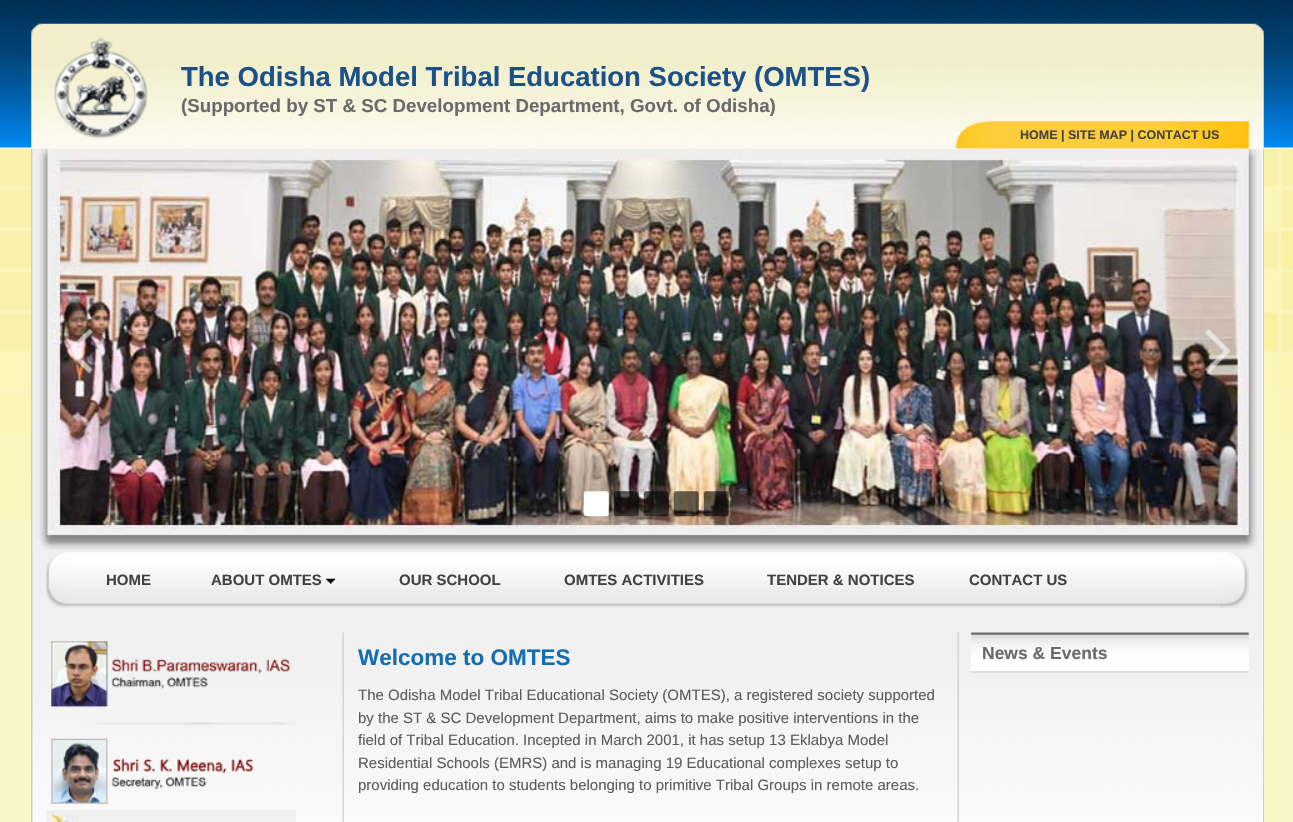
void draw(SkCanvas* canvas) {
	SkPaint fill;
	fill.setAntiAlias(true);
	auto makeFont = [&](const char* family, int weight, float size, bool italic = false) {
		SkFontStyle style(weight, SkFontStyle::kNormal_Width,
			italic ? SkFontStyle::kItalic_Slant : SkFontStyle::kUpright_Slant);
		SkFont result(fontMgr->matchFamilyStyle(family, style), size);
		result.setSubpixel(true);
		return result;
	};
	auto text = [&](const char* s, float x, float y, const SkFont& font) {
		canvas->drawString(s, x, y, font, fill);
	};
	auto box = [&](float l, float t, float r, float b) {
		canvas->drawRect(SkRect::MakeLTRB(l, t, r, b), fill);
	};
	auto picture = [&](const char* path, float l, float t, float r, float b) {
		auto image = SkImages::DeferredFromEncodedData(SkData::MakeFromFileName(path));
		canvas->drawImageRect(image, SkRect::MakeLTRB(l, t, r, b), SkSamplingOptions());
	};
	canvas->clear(0xFFFFFFFF);
	picture("image0.png", 0, 0, 1293, 149);
	picture("image1.png", 31, 23, 1264, 149);
	fill.setColor(0xFFF9F7C7);
	box(0, 521, 1293, 822);
	picture("image2.png", 0, 148, 1293, 521);
	fill.setColor(0xFFCCCCCC);
	box(31, 149, 1264, 822);
	fill.setColor(0xFFFFFFFF);
	box(1262, 149, 1263, 822);
	picture("image3.png", 32, 148, 1263, 822);
	picture("image4.png", 32, 148, 1262, 552);
	fill.setColor(0xFFFBFAF9);
	box(1262, 150, 1263, 151);
	picture("image5.png", 66, 328, 93, 374);
	picture("image6.png", 1204, 328, 1231, 374);
	picture("image7.png", 583, 491, 609, 517);
	picture("image8.png", 613, 491, 639, 517);
	picture("image9.png", 643, 491, 669, 517);
	picture("image10.png", 673, 491, 699, 517);
	picture("image11.png", 703, 491, 729, 517);
	picture("image12.png", 46, 552, 72, 608);
	picture("image13.png", 71, 552, 1219, 608);
	picture("image14.png", 71, 604, 72, 606);
	picture("image15.png", 326, 578, 335, 584);
	picture("image16.png", 1219, 552, 1249, 608);
	picture("image17.png", 51, 641, 297, 804);
	picture("image18.png", 46, 810, 296, 822);
	picture("image19.png", 342, 632, 344, 822);
	picture("image20.png", 957, 632, 959, 822);
	picture("image21.png", 971, 632, 1249, 673);
	auto font1 = makeFont("Liberation Sans", 700, 27.5f);
	fill.setColor(0xFF1C5187);
	text("The Odisha Model Tribal Education Society (OMTES)", 181, 86, font1);
	auto font2 = makeFont("Liberation Sans", 700, 18.75f);
	fill.setColor(0xFF6A6A6A);
	text("(Supported by ST & SC Development Department, Govt. of Odisha)", 181, 112, font2);
	auto font3 = makeFont("Liberation Sans", 700, 12.5f);
	fill.setColor(0xFF424141);
	text("HOME | SITE MAP | CONTACT US", 1020, 139, font3);
	auto font4 = makeFont("Liberation Sans", 700, 15);
	text("HOME", 106, 585, font4);
	text("ABOUT OMTES", 211, 585, font4);
	text("OUR SCHOOL", 399, 585, font4);
	text("OMTES ACTIVITIES", 564, 585, font4);
	text("TENDER & NOTICES", 767, 585, font4);
	text("CONTACT US", 969, 585, font4);
	auto font5 = makeFont("Liberation Sans", 700, 22.5f);
	fill.setColor(0xFF126DB2);
	text("Welcome to OMTES", 358, 665, font5);
	auto font6 = makeFont("Liberation Sans", 400, 15);
	fill.setColor(0xFF5B5B5B);
	text("The Odisha Model Tribal Educational Society (OMTES), a registered society supported", 358, 700, font6);
	text("by the ST & SC Development Department, aims to make positive interventions in the", 358, 723, font6);
	text("field of Tribal Education. Incepted in March 2001, it has setup 13 Eklabya Model", 358, 745, font6);
	text("Residential Schools (EMRS) and is managing 19 Educational complexes setup to", 358, 768, font6);
	text("providing education to students belonging to primitive Tribal Groups in remote areas.", 358, 790, font6);
	auto font7 = makeFont("Liberation Sans", 700, 17.5f);
	fill.setColor(0xFF6A6A6A);
	text("News & Events", 982, 659, font7);
}
